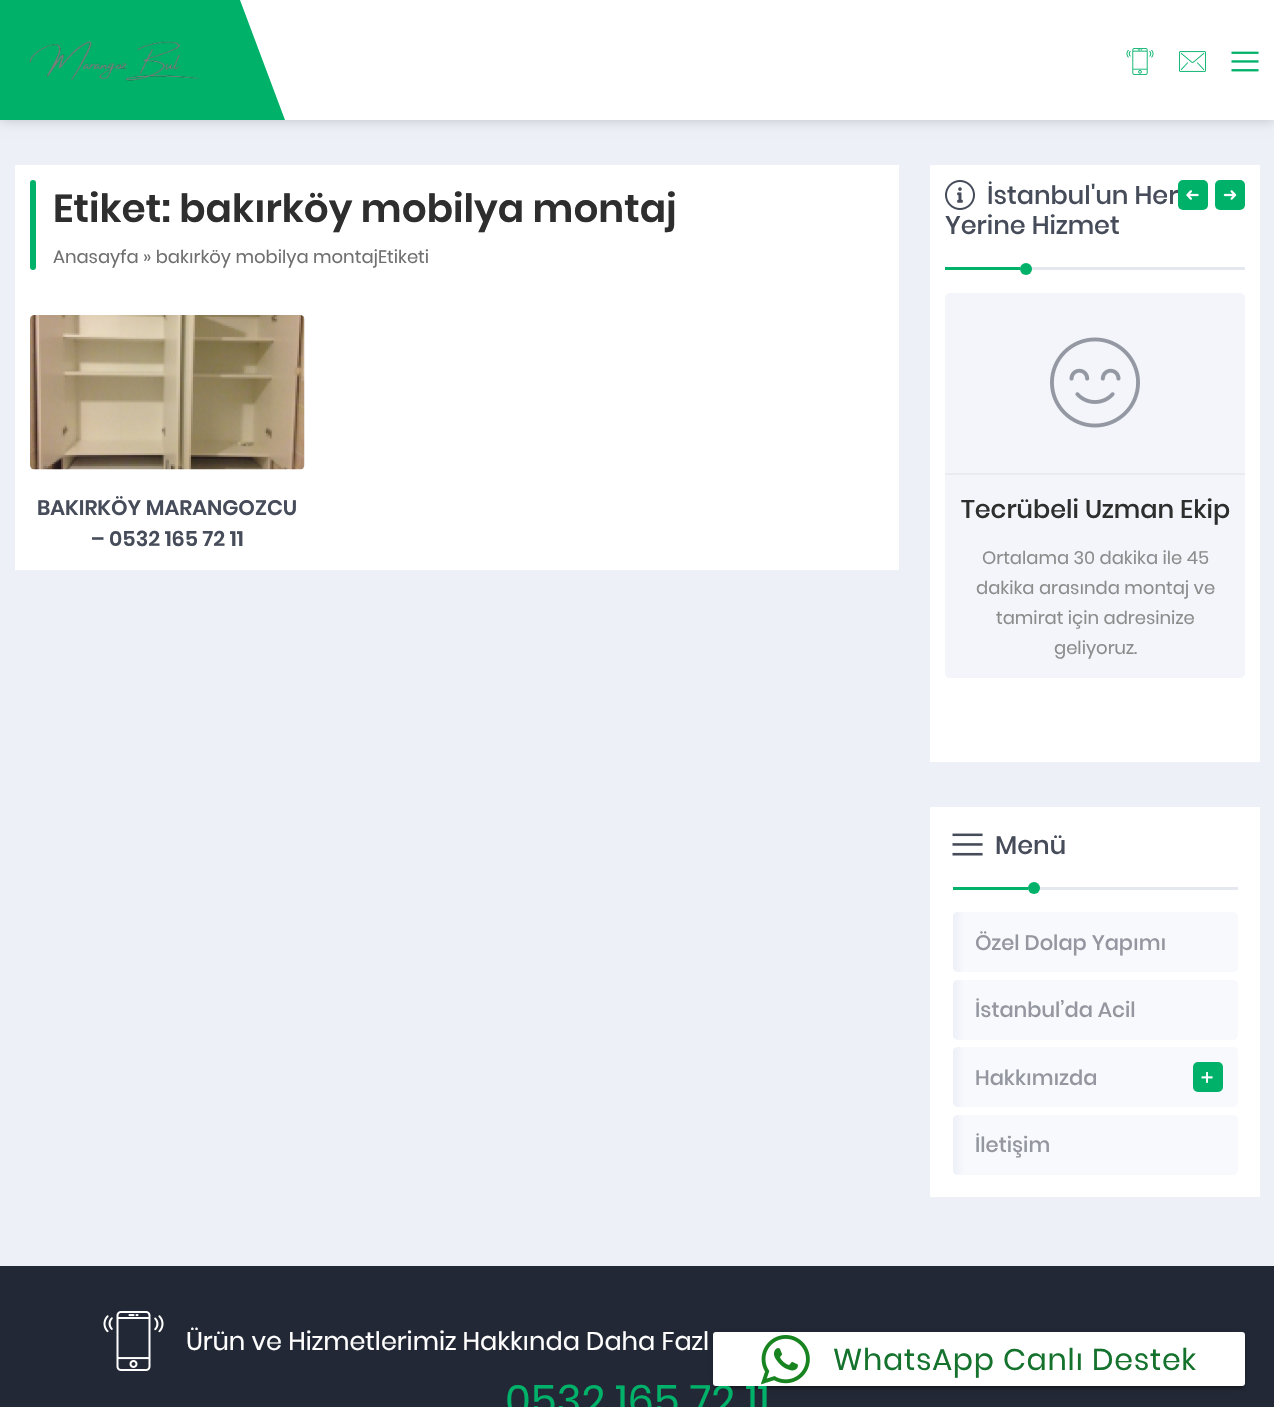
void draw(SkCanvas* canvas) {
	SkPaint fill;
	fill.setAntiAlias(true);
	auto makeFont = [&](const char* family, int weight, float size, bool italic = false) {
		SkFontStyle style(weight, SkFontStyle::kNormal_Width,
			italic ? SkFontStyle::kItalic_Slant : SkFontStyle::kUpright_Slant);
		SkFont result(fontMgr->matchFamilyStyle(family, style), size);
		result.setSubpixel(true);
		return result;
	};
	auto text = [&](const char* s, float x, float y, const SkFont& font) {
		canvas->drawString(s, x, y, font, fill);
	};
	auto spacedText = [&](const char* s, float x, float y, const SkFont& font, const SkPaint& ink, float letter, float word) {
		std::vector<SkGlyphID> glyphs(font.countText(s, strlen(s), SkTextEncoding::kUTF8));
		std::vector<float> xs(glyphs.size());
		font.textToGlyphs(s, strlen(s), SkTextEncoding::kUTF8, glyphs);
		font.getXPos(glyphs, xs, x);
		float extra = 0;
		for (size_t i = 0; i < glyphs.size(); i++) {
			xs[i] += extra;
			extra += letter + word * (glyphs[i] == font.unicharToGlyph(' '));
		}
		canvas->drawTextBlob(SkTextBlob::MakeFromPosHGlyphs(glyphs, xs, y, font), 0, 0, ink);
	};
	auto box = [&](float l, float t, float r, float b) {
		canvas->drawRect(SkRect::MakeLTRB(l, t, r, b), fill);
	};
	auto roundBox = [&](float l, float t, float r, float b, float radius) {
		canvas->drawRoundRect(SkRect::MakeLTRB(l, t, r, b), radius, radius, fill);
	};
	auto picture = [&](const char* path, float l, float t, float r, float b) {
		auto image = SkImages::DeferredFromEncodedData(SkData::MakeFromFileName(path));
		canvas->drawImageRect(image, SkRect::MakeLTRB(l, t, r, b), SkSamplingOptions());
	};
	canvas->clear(0xFFEDF0F7);
	fill.setColor(0x33000000);
	fill.setMaskFilter(SkMaskFilter::MakeBlur(kNormal_SkBlurStyle, 6));
	canvas->drawRect(SkRect::MakeLTRB(0, 0, 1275, 120), fill);
	fill.setMaskFilter(nullptr);
	fill.setColor(0xFFFFFFFF);
	box(285, 0, 1274, 120);
	fill.setColor(0xFF00B169);
	box(0, 0, 285, 120);
	picture("image0.png", 29, 41, 199, 81);
	fill.setColor(0xFFFFFFFF);
	canvas->drawPath(SkPathBuilder().moveTo(285, 0).lineTo(285, 120).lineTo(240, 0).close().detach(), fill);
	picture("image1.png", 1126, 48, 1154, 75);
	picture("image2.png", 1179, 51, 1206, 72);
	picture("image3.png", 1231, 51, 1259, 72);
	box(15, 165, 899, 570);
	fill.setColor(0xFF00B169);
	roundBox(30, 180, 36, 270, 3);
	picture("image4.png", 30, 315, 305, 470);
	fill.setColor(0xFFFFFFFF);
	box(930, 165, 1260, 762);
	picture("image5.png", 945, 180, 975, 210);
	fill.setColor(0xFFE5E8EF);
	box(1020, 267, 1245, 270);
	fill.setColor(0xFF00B169);
	canvas->drawCircle(1026, 269, 6, fill);
	box(945, 267, 1020, 270);
	roundBox(1215, 180, 1245, 210, 5);
	picture("image7.png", 1223, 190, 1237, 200);
	fill.setColor(0xFFF3F5FA);
	roundBox(945, 293, 1245, 678, 5);
	fill.setColor(0xFFE9EBF0);
	box(945, 473, 1245, 475);
	picture("image8.png", 1050, 337, 1140, 428);
	fill.setColor(0xFFFFFFFF);
	box(930, 807, 1260, 1197);
	picture("image9.png", 952, 833, 983, 856);
	fill.setColor(0xFFE5E8EF);
	box(1028, 887, 1238, 890);
	fill.setColor(0xFF00B169);
	canvas->drawCircle(1034, 888, 6, fill);
	box(953, 887, 1028, 890);
	fill.setColor(0xFFF8F9FD);
	roundBox(953, 912, 1238, 972, 5);
	{
		const SkColor colors[] = {0xFFEDF0F7, 0xFFF8F9FD};
		const float stops[] = {0, 1};
		const SkPoint ends[] = {{953, 942}, {965, 942}};
		fill.setShader(SkGradientShader::MakeLinear(ends, colors, stops, 2, SkTileMode::kClamp));
		fill.setAlpha(255);
	}
	roundBox(953, 912, 965, 972, 5);
	fill.setShader(nullptr);
	fill.setColor(0xFFF8F9FD);
	roundBox(953, 980, 1238, 1040, 5);
	{
		const SkColor colors[] = {0xFFEDF0F7, 0xFFF8F9FD};
		const float stops[] = {0, 1};
		const SkPoint ends[] = {{953, 1010}, {965, 1010}};
		fill.setShader(SkGradientShader::MakeLinear(ends, colors, stops, 2, SkTileMode::kClamp));
		fill.setAlpha(255);
	}
	roundBox(953, 980, 965, 1040, 5);
	fill.setShader(nullptr);
	fill.setColor(0xFFF8F9FD);
	roundBox(953, 1047, 1238, 1107, 5);
	{
		const SkColor colors[] = {0xFFEDF0F7, 0xFFF8F9FD};
		const float stops[] = {0, 1};
		const SkPoint ends[] = {{953, 1077}, {965, 1077}};
		fill.setShader(SkGradientShader::MakeLinear(ends, colors, stops, 2, SkTileMode::kClamp));
		fill.setAlpha(255);
	}
	roundBox(953, 1047, 965, 1107, 5);
	fill.setShader(nullptr);
	fill.setColor(0xFF00B169);
	roundBox(1193, 1062, 1223, 1092, 5);
	fill.setColor(0xFFF8F9FD);
	roundBox(953, 1115, 1238, 1175, 5);
	{
		const SkColor colors[] = {0xFFEDF0F7, 0xFFF8F9FD};
		const float stops[] = {0, 1};
		const SkPoint ends[] = {{953, 1145}, {965, 1145}};
		fill.setShader(SkGradientShader::MakeLinear(ends, colors, stops, 2, SkTileMode::kClamp));
		fill.setAlpha(255);
	}
	roundBox(953, 1115, 965, 1175, 5);
	fill.setShader(nullptr);
	fill.setColor(0xFF222835);
	box(0, 1266, 1274, 1407);
	picture("image10.png", 103, 1311, 164, 1371);
	fill.setColor(0x33000000);
	fill.setMaskFilter(SkMaskFilter::MakeBlur(kNormal_SkBlurStyle, 1));
	canvas->drawRect(SkRect::MakeLTRB(716, 1340, 1242, 1388), fill);
	fill.setMaskFilter(nullptr);
	fill.setColor(0x1F000000);
	fill.setMaskFilter(SkMaskFilter::MakeBlur(kNormal_SkBlurStyle, 4));
	canvas->drawRoundRect(SkRect::MakeLTRB(713, 1334, 1245, 1388), 3, 3, fill);
	fill.setMaskFilter(nullptr);
	fill.setColor(0x24000000);
	fill.setMaskFilter(SkMaskFilter::MakeBlur(kNormal_SkBlurStyle, 1.5f));
	canvas->drawRoundRect(SkRect::MakeLTRB(713, 1335, 1245, 1389), 3, 3, fill);
	fill.setMaskFilter(nullptr);
	auto font1 = makeFont("Poppins", 600, 39);
	fill.setColor(0xFF2E2E2E);
	text("Etiket: bakırköy mobilya montaj", 53, 222, font1);
	auto font2 = makeFont("Poppins", 400, 18);
	fill.setColor(0xFF6F6F6F);
	text("Anasayfa » bakırköy mobilya montajEtiketi", 53, 263, font2);
	auto font3 = makeFont("Poppins", 600, 21);
	fill.setColor(0xFF464C59);
	text("BAKIRKÖY MARANGOZCU", 37, 515, font3);
	text("– 0532 165 72 11", 91, 546, font3);
	auto font4 = makeFont("Poppins", 500, 25.5f);
	text("İstanbul'un Her", 987, 204, font4);
	text("Yerine Hizmet", 945, 234, font4);
	fill.setColor(0xFF00B169);
	roundBox(1178, 180, 1208, 210, 5);
	picture("image6.png", 1186, 190, 1199, 200);
	fill.setColor(0xFF2E2E2E);
	text("Tecrübeli Uzman Ekip", 961, 518, font4);
	fill.setColor(0xFF8C8C8C);
	text("Ortalama 30 dakika ile 45", 982, 564, font2);
	text("dakika arasında montaj ve", 976, 594, font2);
	text("tamirat için adresinize", 996, 624, font2);
	text("geliyoruz.", 1054, 654, font2);
	fill.setColor(0xFF464C59);
	text("Menü", 995, 854, font4);
	auto font5 = makeFont("Poppins", 500, 21);
	fill.setColor(0xFF94979F);
	text("Özel Dolap Yapımı", 975, 950, font5);
	text("İstanbul’da Acil", 975, 1017, font5);
	text("Hakkımızda", 975, 1085, font5);
	auto font6 = makeFont("Poppins", 400, 21);
	fill.setColor(0xFFFFFFFF);
	text("+", 1201, 1085, font6);
	fill.setColor(0xFF94979F);
	text("İletişim", 975, 1152, font5);
	auto font7 = makeFont("Poppins", 400, 25.5f);
	fill.setColor(0xFFFFFFFF);
	text("Ürün ve Hizmetlerimiz Hakkında Daha Fazl", 186, 1350, font7);
	auto font8 = makeFont("Poppins", 400, 42);
	fill.setColor(0xFF00B169);
	text("0532 165 72 11", 505, 1415, font8);
	fill.setColor(0xFFFFFFFF);
	roundBox(713, 1332, 1245, 1386, 3);
	picture("image11.png", 761, 1335, 810, 1385);
	auto font9 = makeFont("Poppins", 400, 30);
	fill.setColor(0xFF14722D);
	spacedText("WhatsApp Canlı Destek", 833, 1370, font9, fill, 0.75f, 0);
}
